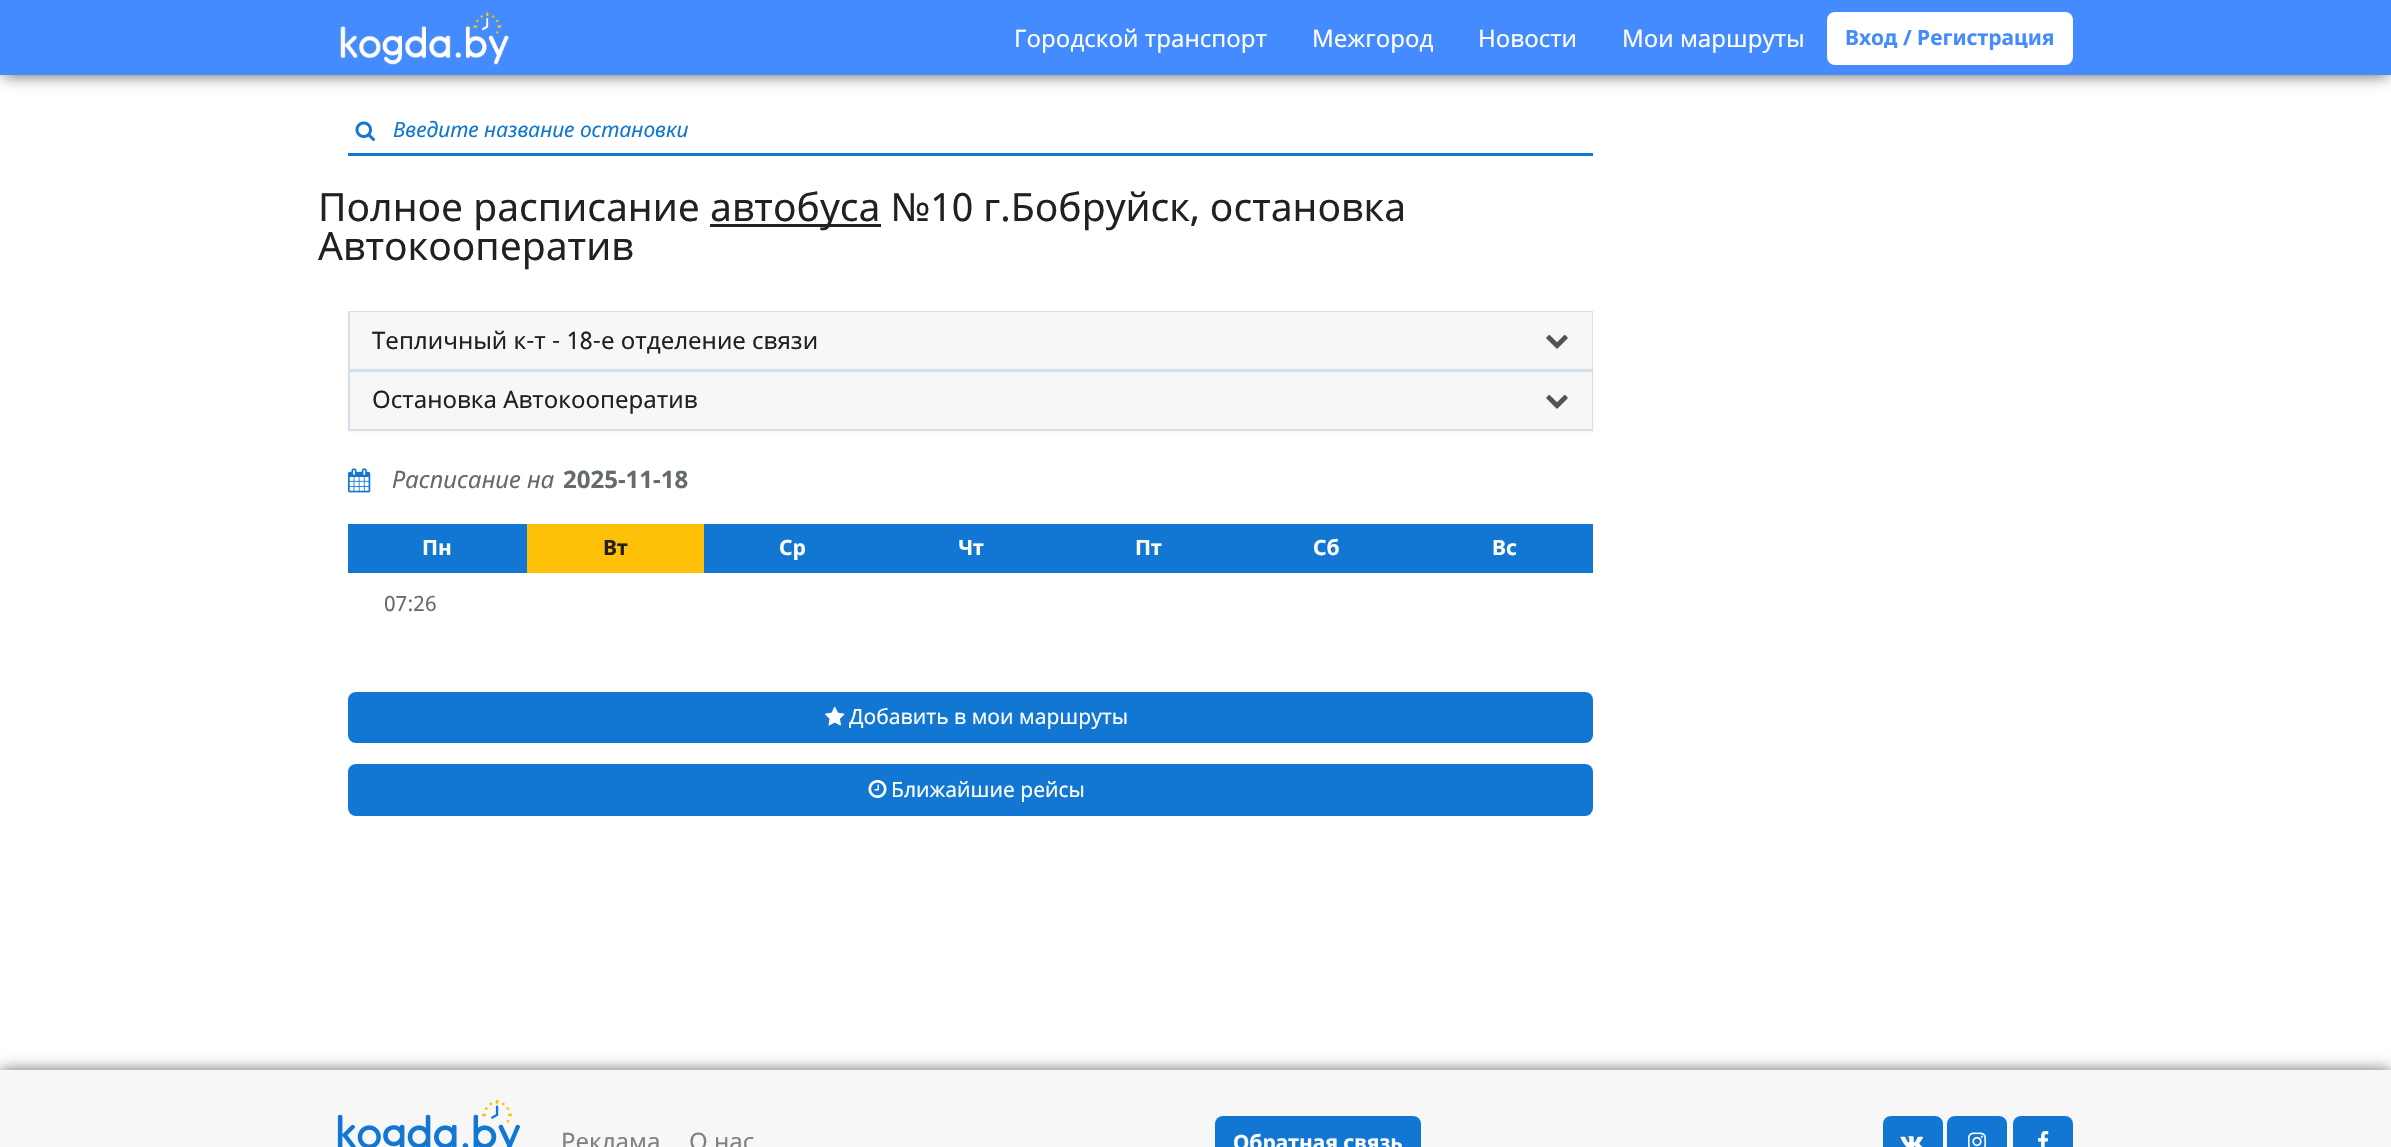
void draw(SkCanvas* canvas) {
	SkPaint fill;
	fill.setAntiAlias(true);
	auto makeFont = [&](const char* family, int weight, float size, bool italic = false) {
		SkFontStyle style(weight, SkFontStyle::kNormal_Width,
			italic ? SkFontStyle::kItalic_Slant : SkFontStyle::kUpright_Slant);
		SkFont result(fontMgr->matchFamilyStyle(family, style), size);
		result.setSubpixel(true);
		return result;
	};
	auto text = [&](const char* s, float x, float y, const SkFont& font) {
		canvas->drawString(s, x, y, font, fill);
	};
	auto box = [&](float l, float t, float r, float b) {
		canvas->drawRect(SkRect::MakeLTRB(l, t, r, b), fill);
	};
	auto roundBox = [&](float l, float t, float r, float b, float radius) {
		canvas->drawRoundRect(SkRect::MakeLTRB(l, t, r, b), radius, radius, fill);
	};
	auto picture = [&](const char* path, float l, float t, float r, float b) {
		auto image = SkImages::DeferredFromEncodedData(SkData::MakeFromFileName(path));
		canvas->drawImageRect(image, SkRect::MakeLTRB(l, t, r, b), SkSamplingOptions());
	};
	canvas->clear(0xFFFFFFFF);
	fill.setColor(0xA6000000);
	fill.setMaskFilter(SkMaskFilter::MakeBlur(kNormal_SkBlurStyle, 7.5f));
	canvas->drawRect(SkRect::MakeLTRB(3, 6, 2388, 75), fill);
	fill.setMaskFilter(nullptr);
	fill.setColor(0xFF438BFF);
	box(0, 0, 2391, 75);
	picture("image0.png", 340, 12, 509, 65);
	fill.setColor(0xFFFFFFFF);
	roundBox(1827, 12, 2073, 65, 8);
	picture("image1.png", 355, 121, 375, 141);
	fill.setColor(0xFF1277D3);
	box(348, 153, 1593, 156);
	fill.setColor(0xFF212121);
	box(710, 224, 881, 227);
	fill.setStyle(SkPaint::kStroke_Style);
	fill.setStrokeWidth(2);
	fill.setColor(0xFFD3E0E9);
	canvas->drawRect(SkRect::MakeLTRB(349, 312, 1592, 370), fill);
	fill.setStyle(SkPaint::kFill_Style);
	fill.setColor(0x0D000000);
	fill.setMaskFilter(SkMaskFilter::MakeBlur(kNormal_SkBlurStyle, 1));
	canvas->drawRect(SkRect::MakeLTRB(348, 372, 1593, 432), fill);
	fill.setMaskFilter(nullptr);
	fill.setColor(0xFFF7F7F7);
	box(350, 312, 1592, 369);
	picture("image2.png", 1546, 334, 1568, 349);
	fill.setStyle(SkPaint::kStroke_Style);
	fill.setColor(0xFFD3E0E9);
	canvas->drawRect(SkRect::MakeLTRB(349, 372, 1592, 430), fill);
	fill.setStyle(SkPaint::kFill_Style);
	fill.setColor(0xFFF7F7F7);
	box(350, 372, 1592, 429);
	picture("image2.png", 1546, 394, 1568, 409);
	picture("image3.png", 348, 468, 371, 493);
	fill.setColor(0xFF1277D3);
	box(348, 524, 527, 573);
	fill.setColor(0xFFFFC107);
	box(527, 524, 704, 573);
	fill.setColor(0xFF1277D3);
	box(704, 524, 1593, 573);
	roundBox(348, 692, 1593, 743, 8);
	picture("image4.png", 825, 706, 845, 726);
	roundBox(348, 764, 1593, 816, 8);
	picture("image5.png", 868, 780, 887, 798);
	fill.setColor(0xA6000000);
	fill.setMaskFilter(SkMaskFilter::MakeBlur(kNormal_SkBlurStyle, 7.5f));
	canvas->drawRect(SkRect::MakeLTRB(0, 1071, 2391, 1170), fill);
	fill.setMaskFilter(nullptr);
	fill.setColor(0xFFF7F7F7);
	box(0, 1070, 2391, 1147);
	picture("image6.png", 337, 1100, 520, 1147);
	fill.setColor(0xFF1277D3);
	roundBox(1215, 1116, 1421, 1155, 8);
	roundBox(1883, 1116, 1943, 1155, 8);
	picture("image7.png", 1900, 1136, 1923, 1147);
	roundBox(1947, 1116, 2007, 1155, 8);
	picture("image8.png", 1968, 1132, 1986, 1147);
	roundBox(2013, 1116, 2073, 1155, 8);
	picture("image9.png", 2038, 1131, 2049, 1147);
	auto font1 = makeFont("Noto Sans", 400, 24);
	fill.setColor(0xFFFFFFFF);
	text("Городской транспорт", 1014, 47, font1);
	text("Межгород", 1312, 47, font1);
	text("Новости", 1478, 47, font1);
	text("Мои маршруты", 1622, 47, font1);
	auto font2 = makeFont("Noto Sans", 700, 21);
	fill.setColor(0xFF438BFF);
	text("Вход / Регистрация", 1845, 45, font2);
	auto font3 = makeFont("Noto Sans", 400, 21, true);
	fill.setColor(0xFF1277D3);
	text("Введите название остановки", 393, 137, font3);
	auto font4 = makeFont("Noto Sans", 400, 39);
	fill.setColor(0xFF212121);
	text("Полное расписание", 318, 221, font4);
	text("автобуса №10 г.Бобруйск, остановка", 710, 221, font4);
	text("Автокооператив", 318, 260, font4);
	text("Тепличный к-т - 18-е отделение связи", 372, 349, font1);
	text("Остановка Автокооператив", 372, 408, font1);
	auto font5 = makeFont("Noto Sans", 400, 24, true);
	fill.setColor(0xFF636B6F);
	text("Расписание на", 392, 488, font5);
	auto font6 = makeFont("Noto Sans", 700, 24);
	text("2025-11-18", 563, 488, font6);
	fill.setColor(0xFFFFFFFF);
	text("Пн", 422, 555, font2);
	fill.setColor(0xFF212121);
	text("Вт", 603, 555, font2);
	fill.setColor(0xFFFFFFFF);
	text("Ср", 779, 555, font2);
	text("Чт", 958, 555, font2);
	text("Пт", 1135, 555, font2);
	text("Сб", 1313, 555, font2);
	text("Вс", 1492, 555, font2);
	auto font7 = makeFont("Noto Sans", 400, 21);
	fill.setColor(0xFF636B6F);
	text("07:26", 384, 611, font7);
	fill.setColor(0xFFFFFFFF);
	text("Добавить в мои маршруты", 849, 724, font7);
	text("Ближайшие рейсы", 891, 797, font7);
	fill.setColor(0xFF808080);
	text("Реклама", 561, 1150, font1);
	text("О нас", 689, 1150, font1);
	fill.setColor(0xFFFFFFFF);
	text("Обратная связь", 1233, 1150, font2);
}
